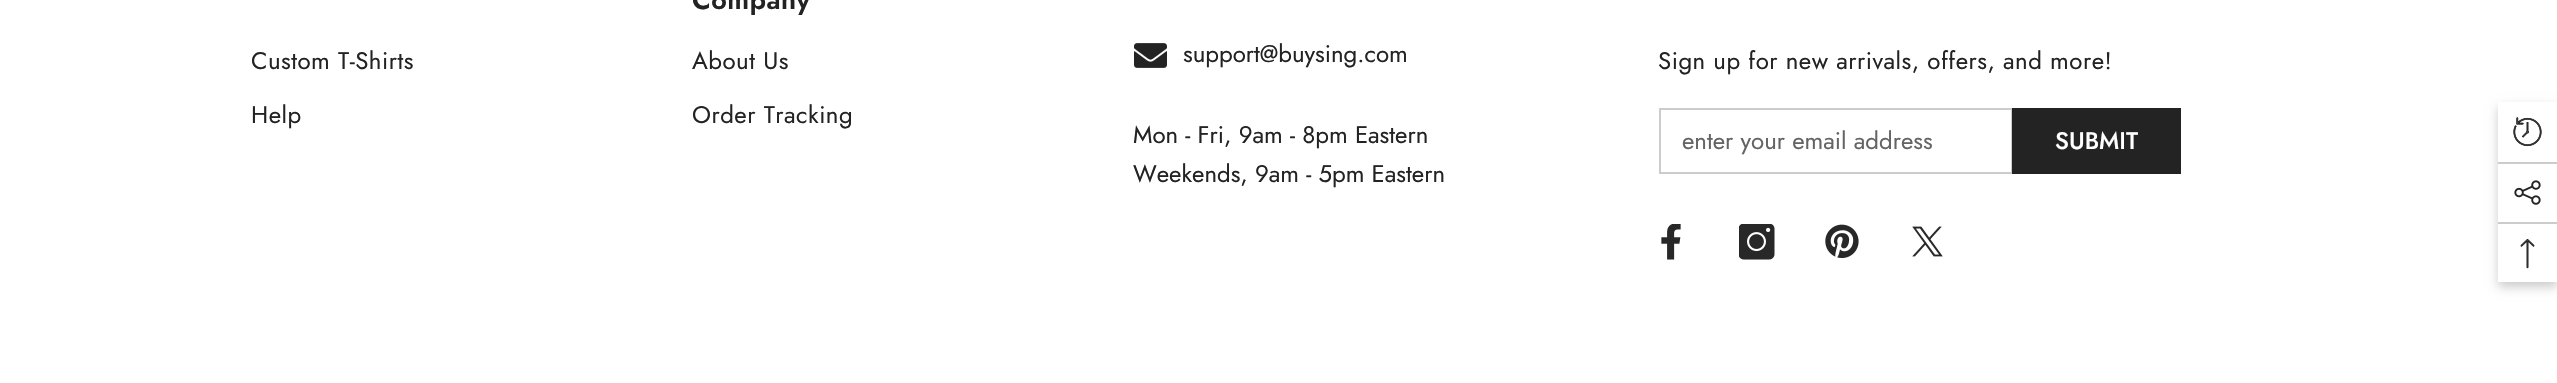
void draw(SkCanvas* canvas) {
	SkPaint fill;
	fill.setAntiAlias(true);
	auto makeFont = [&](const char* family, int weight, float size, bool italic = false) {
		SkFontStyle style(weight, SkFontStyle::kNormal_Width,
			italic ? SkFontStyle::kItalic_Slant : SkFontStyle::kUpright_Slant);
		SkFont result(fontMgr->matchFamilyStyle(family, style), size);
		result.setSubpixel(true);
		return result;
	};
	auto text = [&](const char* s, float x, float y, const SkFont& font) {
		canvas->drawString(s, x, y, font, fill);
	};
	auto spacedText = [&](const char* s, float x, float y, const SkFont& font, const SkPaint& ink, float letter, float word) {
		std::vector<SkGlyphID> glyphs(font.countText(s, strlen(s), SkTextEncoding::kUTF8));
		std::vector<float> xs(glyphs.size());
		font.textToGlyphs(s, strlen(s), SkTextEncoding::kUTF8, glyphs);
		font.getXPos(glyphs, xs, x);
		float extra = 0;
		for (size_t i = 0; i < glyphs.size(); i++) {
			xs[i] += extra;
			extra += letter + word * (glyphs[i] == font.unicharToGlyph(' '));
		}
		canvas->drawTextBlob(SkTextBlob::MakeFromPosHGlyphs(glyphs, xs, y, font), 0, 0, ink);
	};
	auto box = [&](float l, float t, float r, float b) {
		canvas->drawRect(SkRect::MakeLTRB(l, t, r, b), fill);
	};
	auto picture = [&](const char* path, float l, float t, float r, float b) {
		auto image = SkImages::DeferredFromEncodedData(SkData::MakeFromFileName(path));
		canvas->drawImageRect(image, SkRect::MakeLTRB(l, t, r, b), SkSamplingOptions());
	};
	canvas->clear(0xFFFFFFFF);
	picture("image0.png", 1134, 43, 1167, 68);
	fill.setStyle(SkPaint::kStroke_Style);
	fill.setStrokeWidth(2);
	fill.setColor(0xFFCCCCCC);
	canvas->drawRect(SkRect::MakeLTRB(1660, 109, 2012, 173), fill);
	fill.setStyle(SkPaint::kFill_Style);
	fill.setColor(0xFF232323);
	box(2012, 108, 2181, 174);
	picture("image1.png", 1661, 224, 1681, 260);
	picture("image2.png", 1739, 224, 1775, 260);
	picture("image3.png", 1825, 224, 1859, 258);
	picture("image4.png", 1912, 226, 1943, 257);
	canvas->save();
	canvas->clipPath(SkPathBuilder(SkPathFillType::kEvenOdd).moveTo(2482, 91).lineTo(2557, 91).lineTo(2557, 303).lineTo(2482, 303).close().moveTo(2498, 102).lineTo(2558, 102).lineTo(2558, 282).lineTo(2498, 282).close().detach(), true);
	fill.setColor(0x33000000);
	fill.setMaskFilter(SkMaskFilter::MakeBlur(kNormal_SkBlurStyle, 5));
	canvas->drawRect(SkRect::MakeLTRB(2498, 107, 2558, 287), fill);
	fill.setMaskFilter(nullptr);
	canvas->restore();
	picture("image5.png", 2513, 117, 2542, 147);
	fill.setColor(0xFFCCCCCC);
	box(2498, 162, 2557, 164);
	picture("image6.png", 2514, 180, 2541, 205);
	box(2498, 222, 2557, 224);
	picture("image7.png", 2520, 239, 2535, 269);
	auto font1 = makeFont("Jost", 400, 24);
	fill.setColor(0xFF232323);
	spacedText("Custom T-Shirts", 251, 69, font1, fill, 0.5f, 0);
	spacedText("Help", 251, 123, font1, fill, 0.5f, 0);
	auto font2 = makeFont("Jost", 600, 27);
	spacedText("Company", 692, 9, font2, fill, 0.5f, 0);
	spacedText("About Us", 692, 69, font1, fill, 0.5f, 0);
	spacedText("Order Tracking", 692, 123, font1, fill, 0.5f, 0);
	text("support@buysing.com", 1183, 62, font1);
	text("Mon - Fri, 9am - 8pm Eastern", 1133, 143, font1);
	text("Weekends, 9am - 5pm Eastern", 1133, 182, font1);
	spacedText("Sign up for new arrivals, offers, and more!", 1658, 69, font1, fill, 0.5f, 0);
	fill.setColor(0xFF646464);
	text("enter your email address", 1682, 149, font1);
	auto font3 = makeFont("Jost", 500, 24);
	fill.setColor(0xFFFFFFFF);
	text("SUBMIT", 2055, 149, font3);
}
